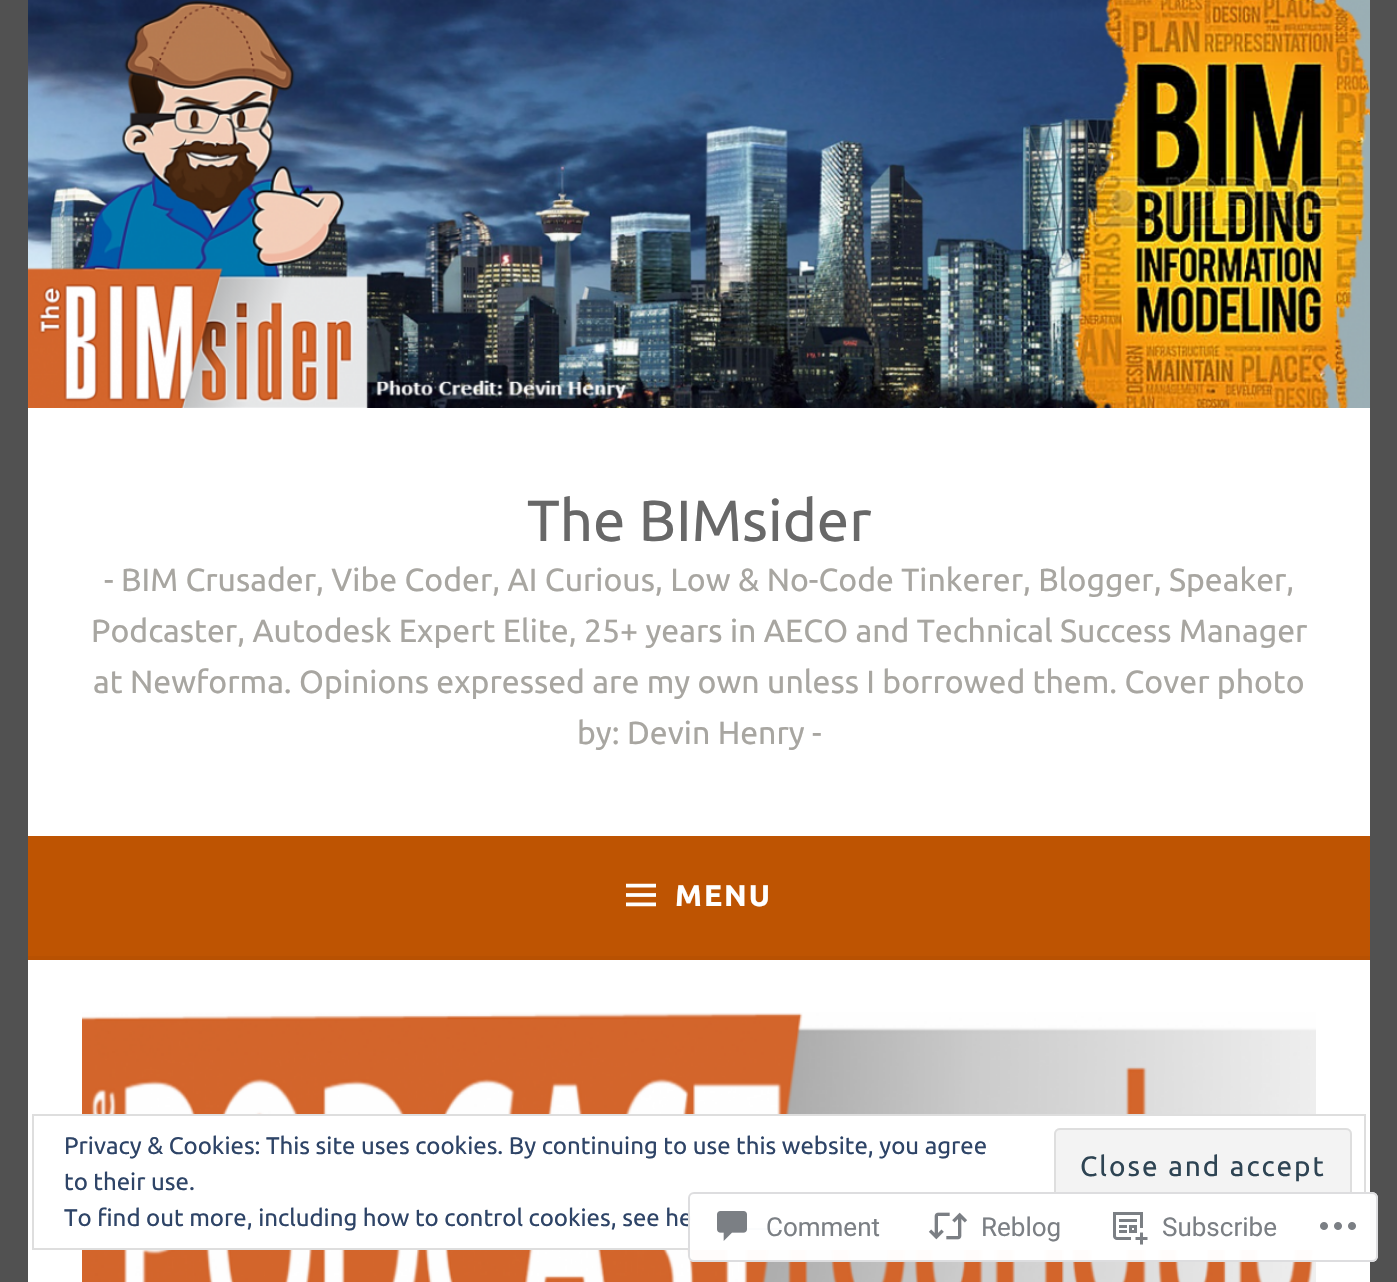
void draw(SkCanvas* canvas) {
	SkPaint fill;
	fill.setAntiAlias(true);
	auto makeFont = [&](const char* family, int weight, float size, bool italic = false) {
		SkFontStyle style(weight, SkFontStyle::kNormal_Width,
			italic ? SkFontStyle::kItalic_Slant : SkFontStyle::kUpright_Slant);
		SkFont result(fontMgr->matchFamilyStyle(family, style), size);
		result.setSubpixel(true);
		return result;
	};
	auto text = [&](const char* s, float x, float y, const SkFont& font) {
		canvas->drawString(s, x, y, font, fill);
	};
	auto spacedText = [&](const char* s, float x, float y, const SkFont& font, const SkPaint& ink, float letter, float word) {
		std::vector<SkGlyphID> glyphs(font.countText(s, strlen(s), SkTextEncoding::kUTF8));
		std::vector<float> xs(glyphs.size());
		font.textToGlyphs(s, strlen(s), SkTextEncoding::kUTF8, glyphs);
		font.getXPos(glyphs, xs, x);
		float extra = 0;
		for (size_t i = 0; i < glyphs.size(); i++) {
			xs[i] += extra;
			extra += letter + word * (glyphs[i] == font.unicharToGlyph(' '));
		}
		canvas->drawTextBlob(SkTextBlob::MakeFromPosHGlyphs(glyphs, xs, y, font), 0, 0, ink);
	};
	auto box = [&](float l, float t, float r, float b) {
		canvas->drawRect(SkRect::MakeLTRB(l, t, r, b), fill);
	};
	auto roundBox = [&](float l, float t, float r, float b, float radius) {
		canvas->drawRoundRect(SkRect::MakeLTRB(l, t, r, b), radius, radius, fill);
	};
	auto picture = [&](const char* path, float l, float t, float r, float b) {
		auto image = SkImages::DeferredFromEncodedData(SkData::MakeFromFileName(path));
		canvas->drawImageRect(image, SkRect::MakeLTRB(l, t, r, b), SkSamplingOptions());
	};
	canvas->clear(0xFF515151);
	picture("image0.png", 28, 0, 1370, 408);
	fill.setColor(0xFFFFFFFF);
	box(28, 408, 1370, 836);
	fill.setColor(0xFFBE5402);
	box(28, 836, 1370, 956);
	fill.setColor(0xFFB85102);
	box(28, 956, 1370, 960);
	picture("image1.png", 626, 883, 656, 907);
	fill.setColor(0xFFFFFFFF);
	box(28, 960, 1370, 1282);
	picture("image2.png", 82, 1012, 1316, 1282);
	box(82, 1116, 1316, 1248);
	fill.setStyle(SkPaint::kStroke_Style);
	fill.setStrokeWidth(2);
	fill.setColor(0xFFDEDEDE);
	canvas->drawRect(SkRect::MakeLTRB(33, 1115, 1365, 1249), fill);
	fill.setStyle(SkPaint::kFill_Style);
	fill.setColor(0xFFF3F3F3);
	roundBox(1054, 1128, 1352, 1206, 6);
	fill.setColor(0xFFDBDBDB);
	canvas->drawPath(SkPathBuilder().moveTo(1056, 1196).cubicTo(1056, 1199, 1055, 1203, 1059, 1204).lineTo(1346, 1204).cubicTo(1350, 1204, 1350, 1199, 1350, 1196).cubicTo(1350, 1198, 1348, 1200, 1346, 1200).lineTo(1060, 1200).cubicTo(1058, 1200, 1056, 1198, 1056, 1196).close().detach(), fill);
	fill.setStyle(SkPaint::kStroke_Style);
	fill.setColor(0xFFDEDEDE);
	canvas->drawRoundRect(SkRect::MakeLTRB(1055, 1129, 1351, 1205), 5, 5, fill);
	fill.setStyle(SkPaint::kFill_Style);
	fill.setColor(0xFF2E4467);
	box(726, 1228, 872, 1230);
	auto font1 = makeFont("Ubuntu", 400, 58);
	fill.setColor(0xFF686868);
	text("The BIMsider", 527, 541, font1);
	auto font2 = makeFont("Ubuntu", 400, 32);
	fill.setColor(0xFFA8A6A1);
	text("- BIM Crusader, Vibe Coder, AI Curious, Low & No-Code Tinkerer, Blogger, Speaker,", 104, 591, font2);
	text("Podcaster, Autodesk Expert Elite, 25+ years in AECO and Technical Success Manager", 91, 642, font2);
	text("at Newforma. Opinions expressed are my own unless I borrowed them. Cover photo", 93, 693, font2);
	text("by: Devin Henry -", 577, 744, font2);
	auto font3 = makeFont("Ubuntu", 700, 30);
	fill.setColor(0xFFFFFFFF);
	spacedText("MENU", 675, 906, font3, fill, 2, 0);
	auto font4 = makeFont("Ubuntu", 400, 24);
	fill.setColor(0xFF2E4467);
	text("Privacy & Cookies: This site uses cookies. By continuing to use this website, you agree", 64, 1154, font4);
	text("to their use.", 64, 1190, font4);
	auto font5 = makeFont("Ubuntu", 400, 28);
	fill.setColor(0xFF2E4453);
	spacedText("Close and accept", 1080, 1176, font5, fill, 2, 0);
	fill.setColor(0xFF2E4467);
	text("To find out more, including how to control cookies, see he", 64, 1226, font4);
	fill.setColor(0xFAFFFFFF);
	roundBox(688, 1192, 1378, 1262, 6);
	fill.setStyle(SkPaint::kStroke_Style);
	fill.setColor(0xFADCDCDE);
	canvas->drawRoundRect(SkRect::MakeLTRB(689, 1193, 1377, 1261), 5, 5, fill);
	picture("image3.png", 717, 1211, 747, 1241);
	auto font6 = makeFont("Roboto", 400, 26);
	fill.setStyle(SkPaint::kFill_Style);
	fill.setColor(0xFF7B7F84);
	text("Comment", 766, 1236, font6);
	picture("image4.png", 928, 1212, 968, 1240);
	text("Reblog", 981, 1236, font6);
	picture("image5.png", 1113, 1212, 1148, 1245);
	text("Subscribe", 1162, 1236, font6);
	picture("image6.png", 1320, 1222, 1356, 1230);
}
